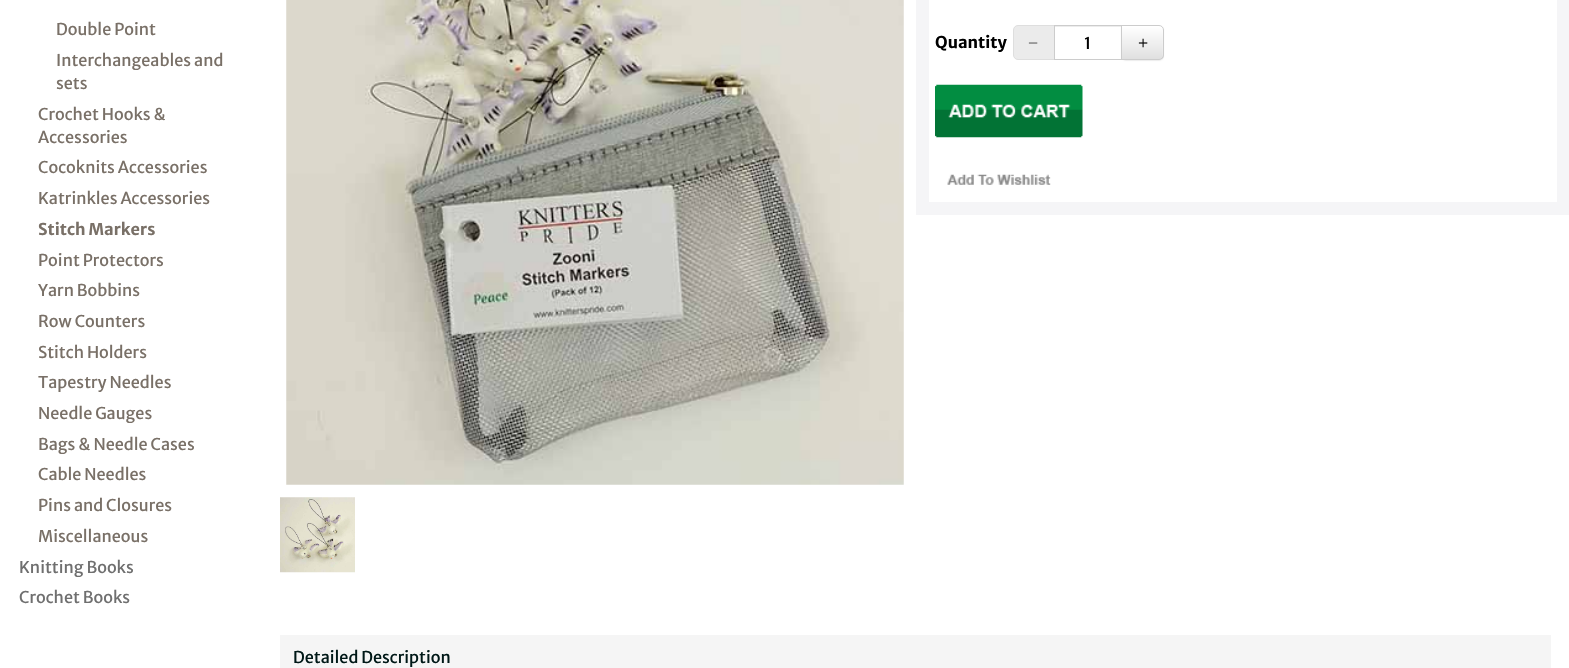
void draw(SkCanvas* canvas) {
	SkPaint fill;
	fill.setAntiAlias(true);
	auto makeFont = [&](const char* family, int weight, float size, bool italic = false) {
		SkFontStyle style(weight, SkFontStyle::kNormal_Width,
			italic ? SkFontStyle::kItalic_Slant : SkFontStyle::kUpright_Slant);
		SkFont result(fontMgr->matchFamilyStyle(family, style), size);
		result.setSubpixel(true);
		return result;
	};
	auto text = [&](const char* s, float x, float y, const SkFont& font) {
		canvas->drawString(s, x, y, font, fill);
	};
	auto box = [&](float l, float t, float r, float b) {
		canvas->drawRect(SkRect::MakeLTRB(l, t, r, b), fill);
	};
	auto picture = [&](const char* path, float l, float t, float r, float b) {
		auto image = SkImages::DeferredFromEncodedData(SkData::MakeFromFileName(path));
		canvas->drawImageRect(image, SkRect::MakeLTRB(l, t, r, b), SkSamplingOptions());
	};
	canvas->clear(0xFFFFFFFF);
	picture("image0.png", 286, 0, 904, 485);
	picture("image1.png", 280, 497, 355, 573);
	fill.setStyle(SkPaint::kStroke_Style);
	fill.setStrokeWidth(13);
	fill.setColor(0xFFF5F5F7);
	canvas->drawRect(SkRect::MakeLTRB(922.5f, -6.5f, 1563.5f, 208.5f), fill);
	fill.setStyle(SkPaint::kFill_Style);
	fill.setColor(0xFFEBEBEB);
	canvas->drawPath(SkPathBuilder().moveTo(1018, 25.5f).lineTo(1054.5f, 25.5f).lineTo(1054.5f, 59.5f).lineTo(1018, 59.5f).cubicTo(1015.5f, 59.5f, 1013.5f, 57.5f, 1013.5f, 55).lineTo(1013.5f, 30).cubicTo(1013.5f, 27.5f, 1015.5f, 25.5f, 1018, 25.5f).close().detach(), fill);
	fill.setStyle(SkPaint::kStroke_Style);
	fill.setStrokeWidth(1);
	fill.setColor(0xFFDEDEDE);
	canvas->drawPath(SkPathBuilder().moveTo(1018, 25.5f).lineTo(1054.5f, 25.5f).lineTo(1054.5f, 59.5f).lineTo(1018, 59.5f).cubicTo(1015.5f, 59.5f, 1013.5f, 57.5f, 1013.5f, 55).lineTo(1013.5f, 30).cubicTo(1013.5f, 27.5f, 1015.5f, 25.5f, 1018, 25.5f).close().detach(), fill);
	fill.setStyle(SkPaint::kFill_Style);
	fill.setColor(0xFFECECEC);
	box(1055, 26, 1121, 27);
	fill.setStyle(SkPaint::kStroke_Style);
	fill.setColor(0xFFCCCCCC);
	canvas->drawRect(SkRect::MakeLTRB(1054.5f, 25.5f, 1122.5f, 59.5f), fill);
	fill.setStyle(SkPaint::kFill_Style);
	fill.setColor(0x12000000);
	fill.setMaskFilter(SkMaskFilter::MakeBlur(kNormal_SkBlurStyle, 0.5f));
	canvas->drawRoundRect(SkRect::MakeLTRB(1121, 26, 1164, 61), 5, 5, fill);
	fill.setMaskFilter(nullptr);
	canvas->save();
	canvas->clipPath(SkPathBuilder().moveTo(1121, 25).lineTo(1159, 25).cubicTo(1162, 25, 1164, 27, 1164, 30).lineTo(1164, 55).cubicTo(1164, 58, 1162, 60, 1159, 60).lineTo(1121, 60).close().detach(), true);
	{
		const SkColor colors[] = {0xFFFFFFFF, 0xFFE0E0E0};
		const float stops[] = {0, 1};
		const SkPoint ends[] = {{1143, 26}, {1143, 59}};
		fill.setShader(SkGradientShader::MakeLinear(ends, colors, stops, 2, SkTileMode::kClamp));
		fill.setAlpha(255);
	}
	box(1122, 26, 1164, 59);
	canvas->restore();
	fill.setShader(nullptr);
	fill.setColor(0x26FFFFFF);
	canvas->drawPath(SkPathBuilder().moveTo(1123, 26).lineTo(1123, 28).lineTo(1153, 28).cubicTo(1164, 28, 1162, 28, 1162, 39).lineTo(1162, 58).cubicTo(1162, 57, 1163, 56, 1163, 55).lineTo(1163, 30).cubicTo(1163, 28, 1161, 26, 1159, 26).close().detach(), fill);
	fill.setStyle(SkPaint::kStroke_Style);
	fill.setColor(0xFFCCCCCC);
	canvas->drawPath(SkPathBuilder().moveTo(1121.5f, 25.5f).lineTo(1159, 25.5f).cubicTo(1161.5f, 25.5f, 1163.5f, 27.5f, 1163.5f, 30).lineTo(1163.5f, 55).cubicTo(1163.5f, 57.5f, 1161.5f, 59.5f, 1159, 59.5f).lineTo(1121.5f, 59.5f).close().detach(), fill);
	picture("image2.png", 935, 84, 1083, 138);
	picture("image3.png", 947, 174, 1051, 185);
	fill.setStyle(SkPaint::kFill_Style);
	fill.setColor(0xFFF5F5F5);
	box(280, 635, 1551, 668);
	auto font1 = makeFont("Merriweather Sans", 400, 16.25f);
	fill.setColor(0xFF797067);
	text("Double Point", 56, 35, font1);
	text("Interchangeables and", 56, 66, font1);
	text("sets", 56, 89, font1);
	text("Crochet Hooks &", 38, 120, font1);
	text("Accessories", 38, 143, font1);
	text("Cocoknits Accessories", 38, 173, font1);
	text("Katrinkles Accessories", 38, 204, font1);
	auto font2 = makeFont("Merriweather Sans", 700, 16.25f);
	text("Stitch Markers", 38, 235, font2);
	text("Point Protectors", 38, 266, font1);
	text("Yarn Bobbins", 38, 296, font1);
	text("Row Counters", 38, 327, font1);
	text("Stitch Holders", 38, 358, font1);
	text("Tapestry Needles", 38, 388, font1);
	text("Needle Gauges", 38, 419, font1);
	text("Bags & Needle Cases", 38, 450, font1);
	text("Cable Needles", 38, 480, font1);
	text("Pins and Closures", 38, 511, font1);
	text("Miscellaneous", 38, 542, font1);
	fill.setColor(0xFF6F6F6F);
	text("Knitting Books", 19, 573, font1);
	text("Crochet Books", 19, 603, font1);
	fill.setColor(0xFF000000);
	text("Quantity", 935, 48, font2);
	auto font3 = makeFont("Liberation Serif", 400, 18);
	fill.setColor(0xFF595959);
	text("−", 1028, 49, font3);
	fill.setColor(0xFF000000);
	text("1", 1084, 49, font1);
	text("+", 1138, 49, font3);
	fill.setColor(0xFF001817);
	text("Detailed Description", 293, 663, font1);
}
